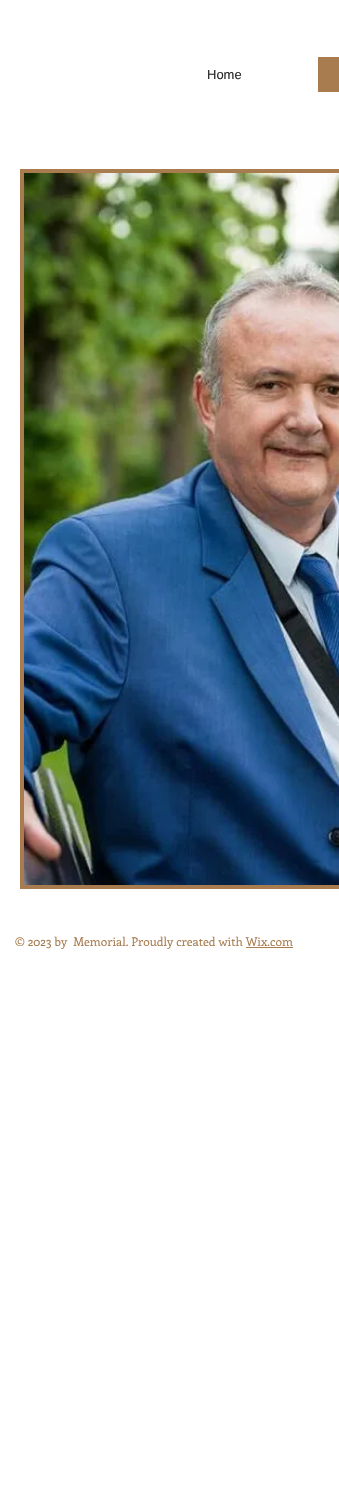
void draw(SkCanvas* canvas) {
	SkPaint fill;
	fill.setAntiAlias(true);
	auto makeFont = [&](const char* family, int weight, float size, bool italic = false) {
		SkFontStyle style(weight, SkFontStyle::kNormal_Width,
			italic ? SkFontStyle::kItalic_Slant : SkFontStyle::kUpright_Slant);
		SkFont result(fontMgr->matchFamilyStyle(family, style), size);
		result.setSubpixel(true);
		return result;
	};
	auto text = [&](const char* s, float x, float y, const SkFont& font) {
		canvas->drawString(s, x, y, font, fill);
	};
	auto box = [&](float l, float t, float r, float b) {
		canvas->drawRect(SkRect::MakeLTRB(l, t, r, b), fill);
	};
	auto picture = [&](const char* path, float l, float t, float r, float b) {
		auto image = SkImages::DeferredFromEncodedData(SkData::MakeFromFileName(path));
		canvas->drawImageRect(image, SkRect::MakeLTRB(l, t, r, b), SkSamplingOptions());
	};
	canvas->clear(0xFFFFFFFF);
	fill.setColor(0xFFA87C4F);
	box(318, 57, 339, 92);
	box(20, 169, 339, 889);
	picture("image0.png", 24, 173, 339, 885);
	box(246, 947, 293, 948);
	auto font1 = makeFont("Liberation Sans", 400, 13);
	fill.setColor(0xFF2A2A2A);
	text("Home", 207, 79, font1);
	auto font2 = makeFont("Enriqueta", 400, 12);
	fill.setColor(0xFFA87C4F);
	text("© 2023 by  Memorial. Proudly created with Wix.com", 15, 946, font2);
}
